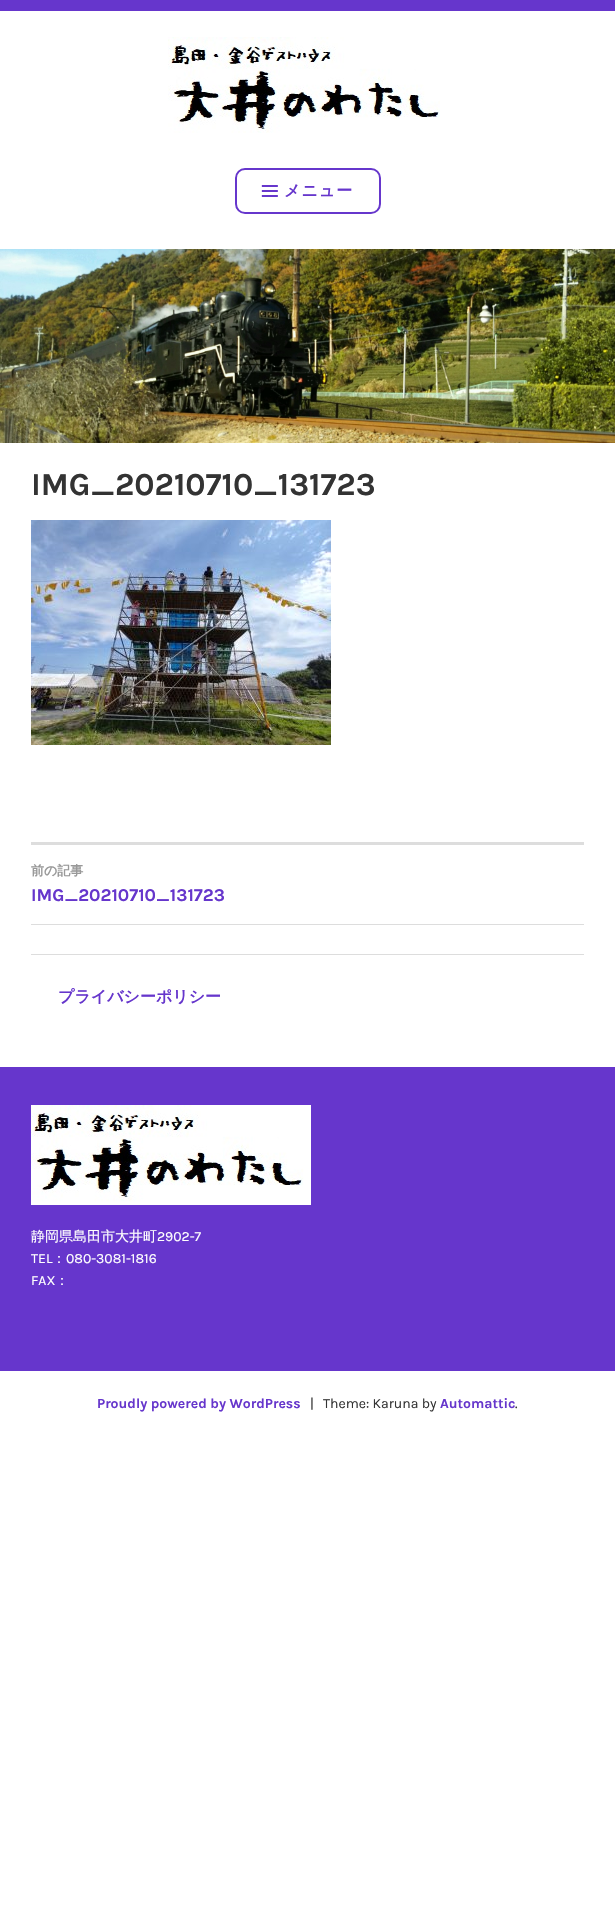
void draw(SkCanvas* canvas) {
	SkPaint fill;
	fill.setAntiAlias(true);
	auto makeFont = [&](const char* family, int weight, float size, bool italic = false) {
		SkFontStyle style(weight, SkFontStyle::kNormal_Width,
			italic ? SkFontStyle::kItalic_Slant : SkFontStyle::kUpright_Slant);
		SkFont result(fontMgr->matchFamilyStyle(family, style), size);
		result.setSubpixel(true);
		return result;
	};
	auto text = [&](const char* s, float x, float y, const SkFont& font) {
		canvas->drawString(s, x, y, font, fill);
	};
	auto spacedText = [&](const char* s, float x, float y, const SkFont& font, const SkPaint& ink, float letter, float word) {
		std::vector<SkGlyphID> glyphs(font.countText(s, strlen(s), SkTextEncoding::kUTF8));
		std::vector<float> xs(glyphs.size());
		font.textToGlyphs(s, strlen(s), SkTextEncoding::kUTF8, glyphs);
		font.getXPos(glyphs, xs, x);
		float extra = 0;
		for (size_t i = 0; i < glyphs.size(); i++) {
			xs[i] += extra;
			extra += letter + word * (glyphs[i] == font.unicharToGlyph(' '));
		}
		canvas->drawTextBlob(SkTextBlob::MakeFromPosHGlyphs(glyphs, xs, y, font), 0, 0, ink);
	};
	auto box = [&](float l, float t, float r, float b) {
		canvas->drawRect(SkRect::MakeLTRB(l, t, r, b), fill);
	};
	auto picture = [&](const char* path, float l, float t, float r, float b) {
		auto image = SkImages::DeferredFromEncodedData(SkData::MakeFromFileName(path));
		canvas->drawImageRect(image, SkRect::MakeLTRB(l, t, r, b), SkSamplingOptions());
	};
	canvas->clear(0xFFFFFFFF);
	fill.setColor(0xFF6636CC);
	box(0, 0, 615, 11);
	picture("image0.png", 168, 37, 440, 133);
	fill.setStyle(SkPaint::kStroke_Style);
	fill.setStrokeWidth(2);
	canvas->drawRoundRect(SkRect::MakeLTRB(236, 169, 380, 213), 9, 9, fill);
	picture("image1.png", 261, 185, 278, 197);
	picture("image2.png", 0, 249, 615, 443);
	picture("image3.png", 31, 520, 331, 745);
	fill.setStyle(SkPaint::kFill_Style);
	fill.setColor(0xFFDDDDDD);
	box(31, 842, 584, 845);
	box(31, 954, 584, 955);
	box(31, 924, 584, 925);
	fill.setColor(0xFF6636CC);
	box(0, 1067, 615, 1371);
	picture("image4.png", 31, 1105, 311, 1205);
	auto font1 = makeFont("WenQuanYi Zen Hei", 700, 16);
	spacedText("メニュー", 284, 196, font1, fill, 1, 0);
	auto font2 = makeFont("Karla", 700, 32);
	fill.setColor(0xFF333333);
	text("IMG_20210710_131723", 31, 495, font2);
	auto font3 = makeFont("WenQuanYi Zen Hei", 700, 13);
	fill.setColor(0xFF999999);
	text("前の記事", 31, 875, font3);
	auto font4 = makeFont("Karla", 700, 18);
	fill.setColor(0xFF6636CC);
	text("IMG_20210710_131723", 31, 901, font4);
	text("プライバシーポリシー", 58, 1002, font1);
	auto font5 = makeFont("WenQuanYi Zen Hei", 500, 14);
	fill.setColor(0xFFFFFFFF);
	text("静岡県島田市大井町", 31, 1241, font5);
	auto font6 = makeFont("Karla", 400, 14);
	text("2902-7", 157, 1241, font6);
	text("TEL", 31, 1263, font6);
	text("：", 52, 1263, font5);
	text("080-3081-1816", 66, 1263, font6);
	text("FAX", 31, 1285, font6);
	text("：", 55, 1285, font5);
	auto font7 = makeFont("Karla", 700, 14);
	fill.setColor(0xFF6636CC);
	text("Proudly powered by WordPress", 97, 1408, font7);
	fill.setColor(0xFF333333);
	text("|", 310, 1408, font6);
	text("Theme: Karuna by", 323, 1408, font6);
	fill.setColor(0xFF6636CC);
	text("Automattic", 440, 1408, font7);
	fill.setColor(0xFF333333);
	text(".", 515, 1408, font6);
}
